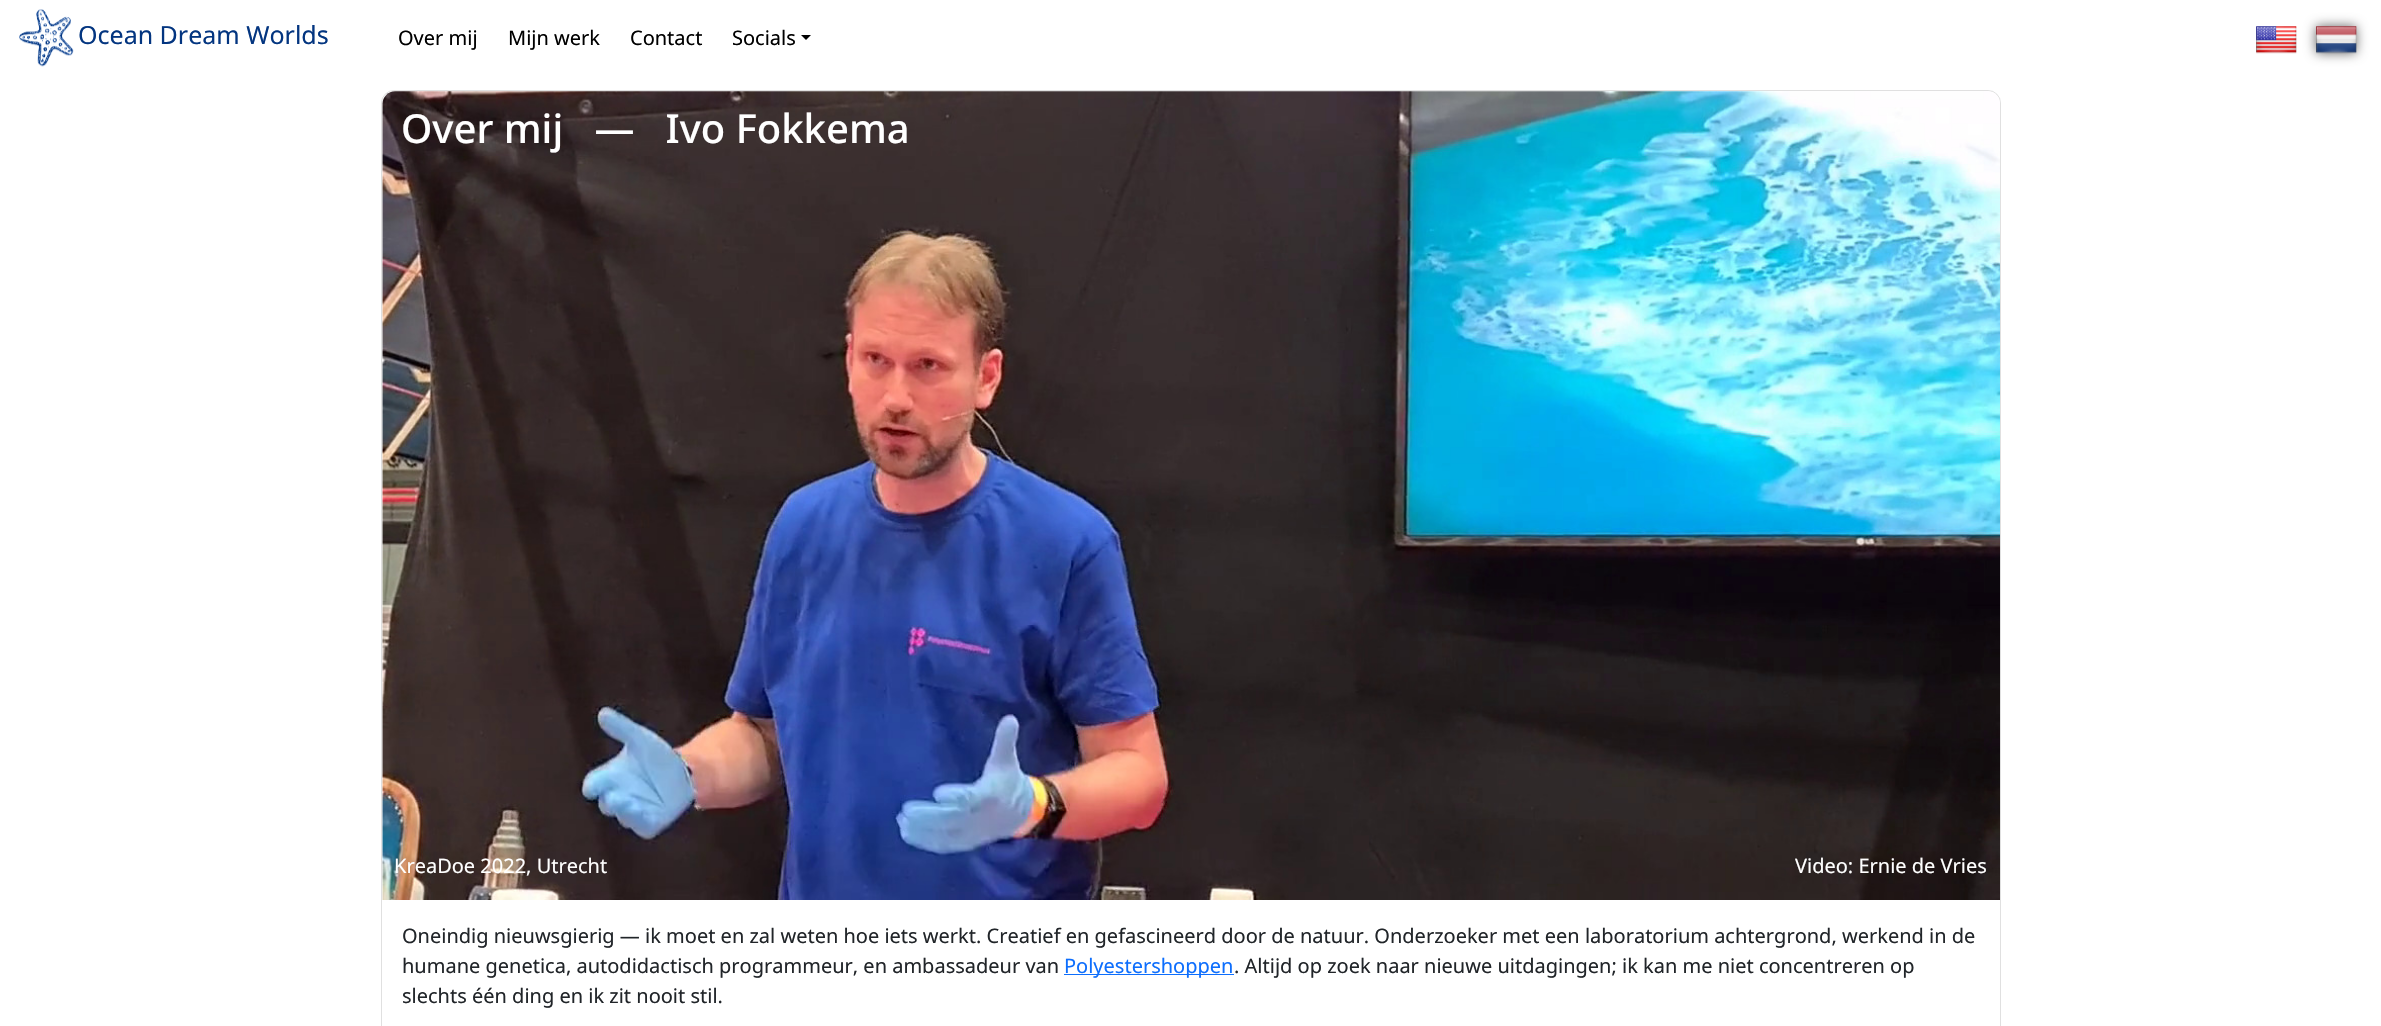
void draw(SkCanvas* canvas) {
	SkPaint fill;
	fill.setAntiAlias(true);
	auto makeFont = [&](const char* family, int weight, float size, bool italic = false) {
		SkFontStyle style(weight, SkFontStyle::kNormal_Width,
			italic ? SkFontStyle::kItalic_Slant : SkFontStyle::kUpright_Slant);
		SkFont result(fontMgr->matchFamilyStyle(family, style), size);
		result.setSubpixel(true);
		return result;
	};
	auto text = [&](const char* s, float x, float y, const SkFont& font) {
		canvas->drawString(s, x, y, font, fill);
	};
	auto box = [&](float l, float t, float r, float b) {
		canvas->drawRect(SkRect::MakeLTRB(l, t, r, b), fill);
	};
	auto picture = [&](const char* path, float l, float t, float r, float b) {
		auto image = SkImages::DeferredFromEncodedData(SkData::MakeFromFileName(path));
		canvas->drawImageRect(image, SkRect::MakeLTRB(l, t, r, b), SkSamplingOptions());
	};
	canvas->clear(0xFFFFFFFF);
	picture("image0.png", 19, 9, 74, 67);
	fill.setColor(0xFF000000);
	canvas->drawPath(SkPathBuilder().moveTo(801, 35).lineTo(811, 35).lineTo(806, 40).close().detach(), fill);
	picture("image1.png", 2256, 26, 2297, 54);
	fill.setColor(0x99000000);
	fill.setMaskFilter(SkMaskFilter::MakeBlur(kNormal_SkBlurStyle, 6));
	canvas->drawRect(SkRect::MakeLTRB(2316, 26, 2356, 53), fill);
	fill.setMaskFilter(nullptr);
	picture("image2.png", 2316, 26, 2357, 54);
	fill.setStyle(SkPaint::kStroke_Style);
	fill.setStrokeWidth(1);
	fill.setColor(0x1F000000);
	canvas->drawRoundRect(SkRect::MakeLTRB(381.5f, 90.5f, 2000.5f, 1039.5f), 12.5f, 12.5f, fill);
	picture("image3.png", 382, 91, 2000, 900);
	fill.setStyle(SkPaint::kFill_Style);
	fill.setColor(0xFF0D6EFD);
	box(1064, 974, 1234, 975);
	auto font1 = makeFont("Noto Sans", 400, 25);
	fill.setColor(0xFF033580);
	text("Ocean Dream Worlds", 78, 44, font1);
	auto font2 = makeFont("Noto Sans", 400, 20);
	fill.setColor(0xFF000000);
	text("Over mij", 398, 45, font2);
	text("Mijn werk", 508, 45, font2);
	text("Contact", 630, 45, font2);
	text("Socials", 732, 45, font2);
	auto font3 = makeFont("Noto Sans", 500, 40);
	fill.setColor(0xFFFFFFFF);
	text("Over mij   —   Ivo Fokkema", 401, 143, font3);
	text("KreaDoe 2022, Utrecht", 394, 873, font2);
	text("Video: Ernie de Vries", 1795, 873, font2);
	fill.setColor(0xFF212529);
	text("Oneindig nieuwsgierig — ik moet en zal weten hoe iets werkt. Creatief en gefascineerd door de natuur. Onderzoeker met een laboratorium achtergrond, werkend in de", 402, 943, font2);
	text("humane genetica, autodidactisch programmeur, en ambassadeur van", 402, 973, font2);
	fill.setColor(0xFF0D6EFD);
	text("Polyestershoppen", 1064, 973, font2);
	fill.setColor(0xFF212529);
	text(". Altijd op zoek naar nieuwe uitdagingen; ik kan me niet concentreren op", 1234, 973, font2);
	text("slechts één ding en ik zit nooit stil.", 402, 1003, font2);
}
